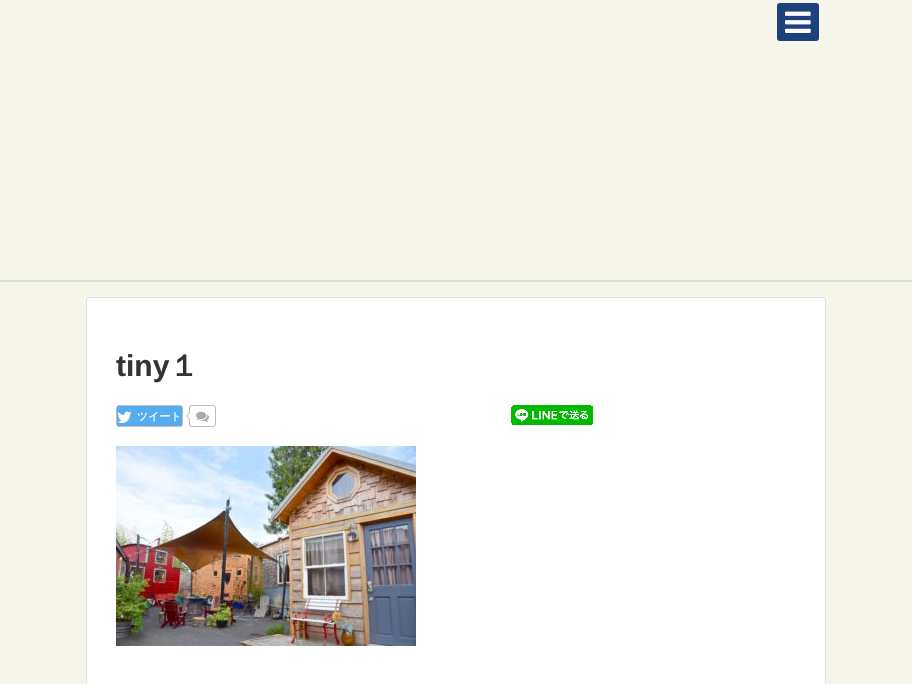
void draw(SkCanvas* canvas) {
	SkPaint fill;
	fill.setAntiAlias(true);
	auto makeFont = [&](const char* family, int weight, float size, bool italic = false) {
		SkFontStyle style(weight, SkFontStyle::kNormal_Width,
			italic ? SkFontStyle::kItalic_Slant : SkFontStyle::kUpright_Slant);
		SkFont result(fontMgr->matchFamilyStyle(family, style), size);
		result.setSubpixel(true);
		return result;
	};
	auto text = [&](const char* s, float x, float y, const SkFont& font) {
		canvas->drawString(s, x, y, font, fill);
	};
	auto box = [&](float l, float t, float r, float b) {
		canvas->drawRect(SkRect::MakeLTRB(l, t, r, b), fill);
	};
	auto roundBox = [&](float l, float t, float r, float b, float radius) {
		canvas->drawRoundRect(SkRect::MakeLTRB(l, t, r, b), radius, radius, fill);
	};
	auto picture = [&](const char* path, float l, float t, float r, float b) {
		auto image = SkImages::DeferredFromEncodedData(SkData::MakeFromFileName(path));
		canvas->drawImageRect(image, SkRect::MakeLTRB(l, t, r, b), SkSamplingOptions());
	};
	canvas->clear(0xFFF7F6EB);
	fill.setColor(0xFF1D417A);
	roundBox(777, 3, 819, 41, 3);
	picture("image0.png", 785, 11, 811, 33);
	fill.setColor(0xFFDDDDDD);
	box(0, 280, 912, 282);
	fill.setColor(0xFFFFFFFF);
	canvas->drawRoundRect(SkRect::MakeLTRB(86.5f, 297.5f, 825.5f, 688.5f), 3.5f, 3.5f, fill);
	fill.setStyle(SkPaint::kStroke_Style);
	fill.setStrokeWidth(1);
	fill.setColor(0xFFDDDDDD);
	canvas->drawRoundRect(SkRect::MakeLTRB(86.5f, 297.5f, 825.5f, 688.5f), 3.5f, 3.5f, fill);
	fill.setStyle(SkPaint::kFill_Style);
	fill.setColor(0xFF55ACEE);
	canvas->drawRoundRect(SkRect::MakeLTRB(116.5f, 405.5f, 182.5f, 426.5f), 2.5f, 2.5f, fill);
	fill.setStyle(SkPaint::kStroke_Style);
	fill.setColor(0xFFBBBBBB);
	canvas->drawRoundRect(SkRect::MakeLTRB(116.5f, 405.5f, 182.5f, 426.5f), 2.5f, 2.5f, fill);
	picture("image1.png", 117, 411, 132, 423);
	canvas->drawRoundRect(SkRect::MakeLTRB(189.5f, 405.5f, 215.5f, 426.5f), 2.5f, 2.5f, fill);
	fill.setStyle(SkPaint::kFill_Style);
	canvas->drawPath(SkPathBuilder().moveTo(190, 412).lineTo(190, 420).lineTo(186, 416).close().detach(), fill);
	picture("image2.png", 196, 411, 209, 422);
	fill.setColor(0xFFFFFFFF);
	canvas->drawPath(SkPathBuilder().moveTo(190, 413).lineTo(190, 419).lineTo(187, 416).close().detach(), fill);
	picture("image3.png", 511, 405, 593, 425);
	picture("image4.png", 116, 446, 416, 646);
	auto font1 = makeFont("Liberation Sans", 700, 30);
	fill.setColor(0xFF333333);
	text("tiny", 116, 376, font1);
	auto font2 = makeFont("WenQuanYi Zen Hei", 700, 30);
	text("１", 169, 376, font2);
	auto font3 = makeFont("WenQuanYi Zen Hei", 500, 11);
	fill.setColor(0xFFFFFFFF);
	text("ツイート", 137, 420, font3);
}
